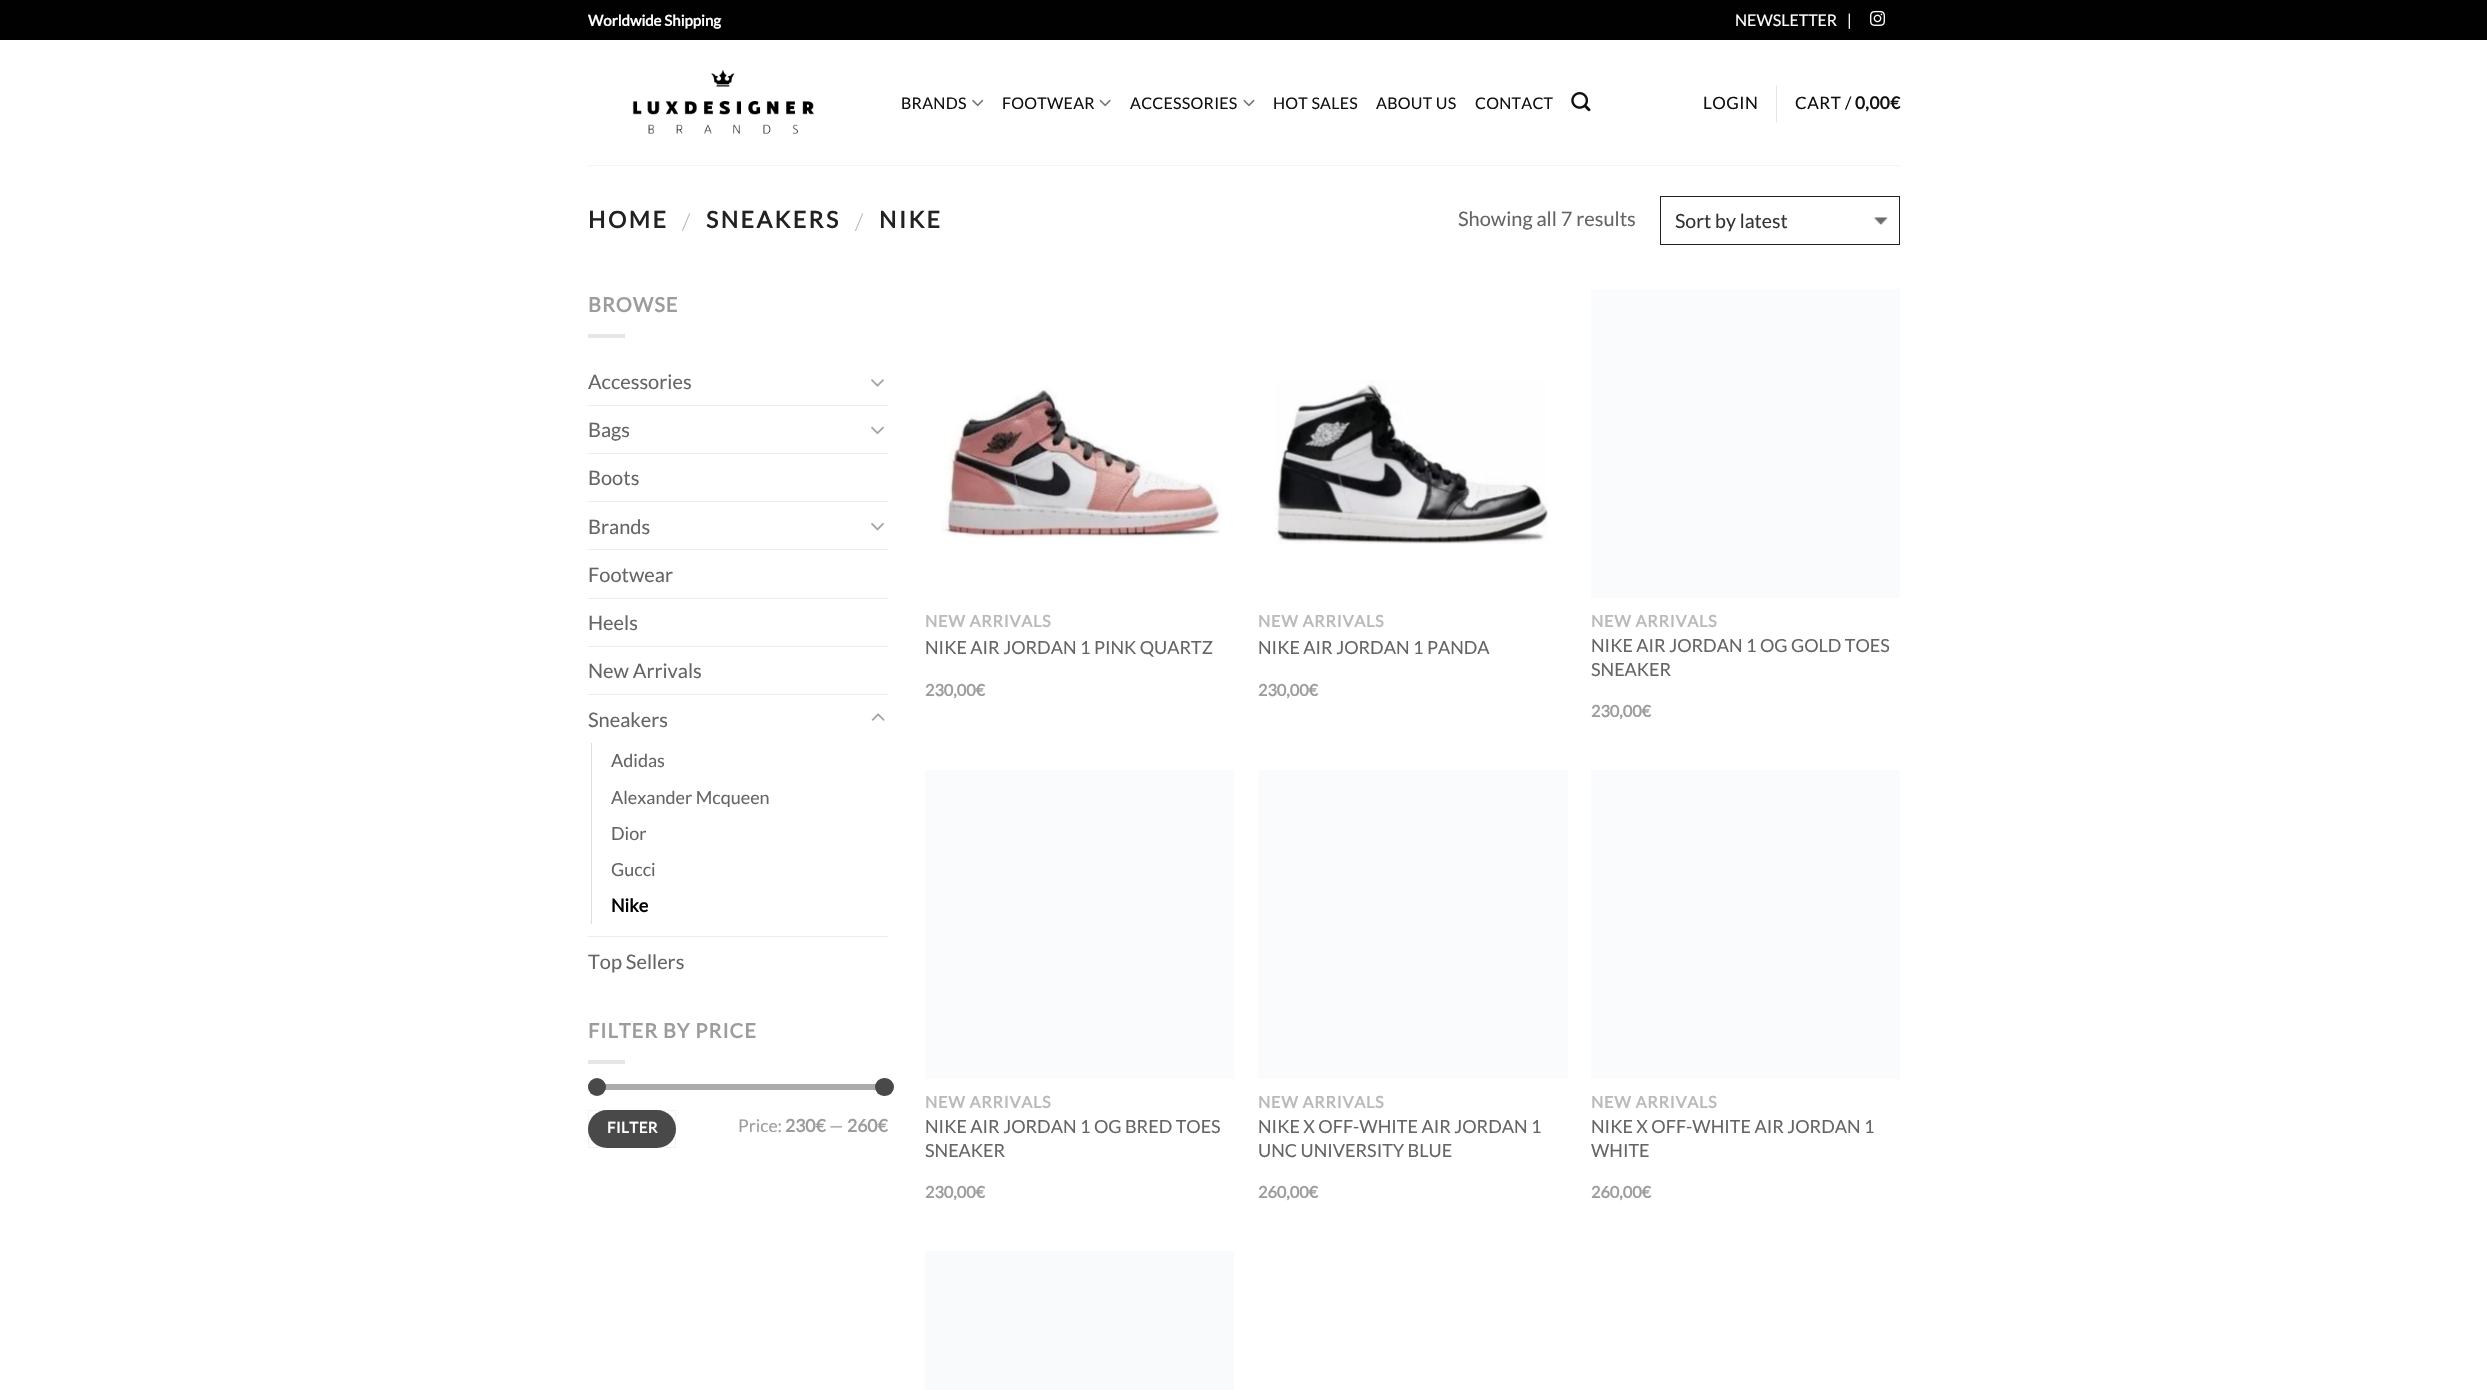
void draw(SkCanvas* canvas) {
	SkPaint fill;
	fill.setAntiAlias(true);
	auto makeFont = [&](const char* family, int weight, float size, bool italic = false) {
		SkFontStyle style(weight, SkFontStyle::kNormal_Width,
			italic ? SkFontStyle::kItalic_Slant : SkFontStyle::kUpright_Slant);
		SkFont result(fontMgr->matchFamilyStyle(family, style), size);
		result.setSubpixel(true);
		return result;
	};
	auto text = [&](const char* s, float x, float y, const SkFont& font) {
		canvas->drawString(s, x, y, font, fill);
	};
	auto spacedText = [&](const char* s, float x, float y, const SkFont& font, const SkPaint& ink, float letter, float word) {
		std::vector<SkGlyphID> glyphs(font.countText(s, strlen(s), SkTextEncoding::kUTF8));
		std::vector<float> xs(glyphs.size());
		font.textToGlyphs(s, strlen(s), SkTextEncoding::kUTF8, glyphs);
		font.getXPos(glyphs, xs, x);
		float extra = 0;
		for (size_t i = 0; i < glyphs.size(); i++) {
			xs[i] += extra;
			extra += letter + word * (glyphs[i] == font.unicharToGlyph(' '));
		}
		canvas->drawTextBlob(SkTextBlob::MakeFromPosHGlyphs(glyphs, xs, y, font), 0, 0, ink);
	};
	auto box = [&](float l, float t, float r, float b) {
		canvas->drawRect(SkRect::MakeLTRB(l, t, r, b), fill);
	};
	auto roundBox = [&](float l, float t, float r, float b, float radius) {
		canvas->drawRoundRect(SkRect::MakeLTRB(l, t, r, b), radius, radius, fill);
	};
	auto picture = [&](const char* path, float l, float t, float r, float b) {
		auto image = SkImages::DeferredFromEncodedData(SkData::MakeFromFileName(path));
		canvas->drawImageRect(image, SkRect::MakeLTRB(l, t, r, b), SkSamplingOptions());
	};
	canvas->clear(0xFFFFFFFF);
	fill.setColor(0xFF010102);
	box(0, 0, 2487, 40);
	picture("image0.png", 1870, 10, 1885, 26);
	picture("image1.png", 632, 69, 814, 134);
	picture("image2.png", 972, 99, 984, 107);
	picture("image3.png", 1099, 99, 1111, 107);
	picture("image4.png", 1243, 99, 1255, 107);
	picture("image5.png", 1571, 92, 1591, 112);
	fill.setColor(0xFFE6E6E6);
	box(1776, 85, 1777, 123);
	fill.setColor(0xFFF5F5F5);
	box(588, 165, 1900, 166);
	picture("image6.png", 1873, 217, 1888, 225);
	fill.setStyle(SkPaint::kStroke_Style);
	fill.setStrokeWidth(1);
	fill.setColor(0xFF222222);
	canvas->drawRect(SkRect::MakeLTRB(1660.5f, 196.5f, 1899.5f, 244.5f), fill);
	fill.setStyle(SkPaint::kFill_Style);
	fill.setColor(0xFFE6E6E6);
	box(588, 334, 625, 338);
	picture("image7.png", 871, 379, 884, 387);
	fill.setColor(0xFFECECEC);
	box(588, 405, 888, 406);
	picture("image8.png", 871, 426, 884, 435);
	box(588, 453, 888, 454);
	box(588, 501, 888, 502);
	picture("image9.png", 871, 523, 884, 531);
	box(588, 549, 888, 550);
	box(588, 598, 888, 599);
	box(588, 646, 888, 647);
	box(588, 694, 888, 695);
	picture("image10.png", 871, 713, 885, 721);
	fill.setColor(0xFFDDDDDD);
	box(591, 743, 592, 924);
	fill.setColor(0xFFECECEC);
	box(588, 936, 888, 937);
	fill.setColor(0xFFE6E6E6);
	box(588, 1060, 625, 1064);
	fill.setColor(0xFFF1F1F1);
	roundBox(588, 1084, 888, 1090, 3);
	fill.setColor(0x80666666);
	roundBox(588, 1084, 888, 1090, 3);
	fill.setColor(0xFF494949);
	canvas->drawCircle(597, 1087, 9, fill);
	roundBox(875, 1078, 894, 1096, 9);
	roundBox(588, 1110, 676, 1148, 19);
	fill.setStyle(SkPaint::kStroke_Style);
	fill.setColor(0x0D000000);
	canvas->drawRect(SkRect::MakeLTRB(588.5f, 1110.5f, 675.5f, 1147.5f), fill);
	picture("image11.png", 941, 388, 1221, 538);
	picture("image12.png", 1274, 380, 1548, 544);
	fill.setStyle(SkPaint::kFill_Style);
	fill.setColor(0xFFFAFBFC);
	box(1591, 289, 1900, 598);
	box(925, 770, 1234, 1079);
	box(1258, 770, 1568, 1079);
	box(1591, 770, 1900, 1079);
	fill.setColor(0xFFF9FAFB);
	box(925, 1251, 1234, 1390);
	auto font1 = makeFont("Lato", 700, 15);
	fill.setColor(0xFFFFFFFF);
	text("Worldwide Shipping", 588, 26, font1);
	auto font2 = makeFont("Lato", 400, 16);
	text("NEWSLETTER", 1735, 26, font2);
	text("|", 1847, 26, font2);
	fill.setColor(0xFF111111);
	spacedText("BRANDS", 901, 109, font2, fill, 0.25f, 0);
	spacedText("FOOTWEAR", 1002, 109, font2, fill, 0.25f, 0);
	spacedText("ACCESSORIES", 1130, 109, font2, fill, 0.25f, 0);
	spacedText("HOT SALES", 1273, 109, font2, fill, 0.25f, 0);
	spacedText("ABOUT US", 1376, 109, font2, fill, 0.25f, 0);
	spacedText("CONTACT", 1475, 109, font2, fill, 0.25f, 0);
	auto font3 = makeFont("Lato", 400, 17);
	spacedText("LOGIN", 1703, 109, font3, fill, 0.5f, 0);
	spacedText("CART /", 1795, 109, font3, fill, 0.5f, 0);
	auto font4 = makeFont("Lato", 700, 17);
	spacedText("0,00€", 1855, 109, font4, fill, 0.5f, 0);
	auto font5 = makeFont("Lato", 700, 23);
	fill.setColor(0xFF222222);
	spacedText("HOME", 588, 228, font5, fill, 2.5f, 0);
	auto font6 = makeFont("Lato", 300, 23);
	fill.setColor(0xFFB2B2B2);
	spacedText("/", 682, 230, font6, fill, 2.5f, 0);
	fill.setColor(0xFF222222);
	spacedText("SNEAKERS", 706, 228, font5, fill, 2.5f, 0);
	fill.setColor(0xFFB2B2B2);
	spacedText("/", 855, 230, font6, fill, 2.5f, 0);
	fill.setColor(0xFF222222);
	spacedText("NIKE", 879, 228, font5, fill, 2.5f, 0);
	auto font7 = makeFont("Lato", 400, 20);
	fill.setColor(0xFF656565);
	text("Showing all 7 results", 1458, 226, font7);
	auto font8 = makeFont("Lato", 400, 19.5f);
	fill.setColor(0xFF333333);
	text("Sort by latest", 1675, 228, font8);
	auto font9 = makeFont("Lato", 700, 20);
	fill.setColor(0xFF9D9C9C);
	spacedText("BROWSE", 588, 312, font9, fill, 1, 0);
	fill.setColor(0xFF656565);
	text("Accessories", 588, 389, font7);
	text("Bags", 588, 437, font7);
	text("Boots", 588, 485, font7);
	text("Brands", 588, 534, font7);
	text("Footwear", 588, 582, font7);
	text("Heels", 588, 630, font7);
	text("New Arrivals", 588, 678, font7);
	text("Sneakers", 588, 727, font7);
	auto font10 = makeFont("Lato", 400, 18);
	text("Adidas", 611, 767, font10);
	text("Alexander Mcqueen", 611, 804, font10);
	text("Dior", 611, 840, font10);
	text("Gucci", 611, 876, font10);
	auto font11 = makeFont("Lato", 700, 18);
	fill.setColor(0xFF000000);
	text("Nike", 611, 912, font11);
	fill.setColor(0xFF656565);
	text("Top Sellers", 588, 969, font7);
	fill.setColor(0xFF9D9C9C);
	spacedText("FILTER BY PRICE", 588, 1038, font9, fill, 1, 0);
	fill.setColor(0xFFFFFFFF);
	spacedText("FILTER", 607, 1133, font1, fill, 0.5f, 0);
	auto font12 = makeFont("Lato", 400, 17.5f);
	fill.setColor(0xFF9D9C9C);
	text("Price:", 738, 1132, font12);
	auto font13 = makeFont("Lato", 700, 17.5f);
	text("230€", 785, 1132, font13);
	text("—", 829, 1132, font12);
	text("260€", 847, 1132, font13);
	auto font14 = makeFont("Lato", 700, 16.25f);
	fill.setColor(0xFFBABABA);
	spacedText("NEW ARRIVALS", 925, 627, font14, fill, 0.75f, 0);
	fill.setColor(0xFF656565);
	text("NIKE AIR JORDAN 1 PINK QUARTZ", 925, 654, font10);
	fill.setColor(0xFF9D9C9C);
	text("230,00€", 925, 696, font14);
	fill.setColor(0xFFBABABA);
	spacedText("NEW ARRIVALS", 1258, 627, font14, fill, 0.75f, 0);
	fill.setColor(0xFF656565);
	text("NIKE AIR JORDAN 1 PANDA", 1258, 654, font10);
	fill.setColor(0xFF9D9C9C);
	text("230,00€", 1258, 696, font14);
	fill.setColor(0xFFBABABA);
	spacedText("NEW ARRIVALS", 1591, 627, font14, fill, 0.75f, 0);
	fill.setColor(0xFF656565);
	text("NIKE AIR JORDAN 1 OG GOLD TOES", 1591, 652, font10);
	text("SNEAKER", 1591, 676, font10);
	fill.setColor(0xFF9D9C9C);
	text("230,00€", 1591, 717, font14);
	fill.setColor(0xFFBABABA);
	spacedText("NEW ARRIVALS", 925, 1108, font14, fill, 0.75f, 0);
	fill.setColor(0xFF656565);
	text("NIKE AIR JORDAN 1 OG BRED TOES", 925, 1133, font10);
	text("SNEAKER", 925, 1157, font10);
	fill.setColor(0xFF9D9C9C);
	text("230,00€", 925, 1198, font14);
	fill.setColor(0xFFBABABA);
	spacedText("NEW ARRIVALS", 1258, 1108, font14, fill, 0.75f, 0);
	fill.setColor(0xFF656565);
	text("NIKE X OFF-WHITE AIR JORDAN 1", 1258, 1133, font10);
	text("UNC UNIVERSITY BLUE", 1258, 1157, font10);
	fill.setColor(0xFF9D9C9C);
	text("260,00€", 1258, 1198, font14);
	fill.setColor(0xFFBABABA);
	spacedText("NEW ARRIVALS", 1591, 1108, font14, fill, 0.75f, 0);
	fill.setColor(0xFF656565);
	text("NIKE X OFF-WHITE AIR JORDAN 1", 1591, 1133, font10);
	text("WHITE", 1591, 1157, font10);
	fill.setColor(0xFF9D9C9C);
	text("260,00€", 1591, 1198, font14);
}
